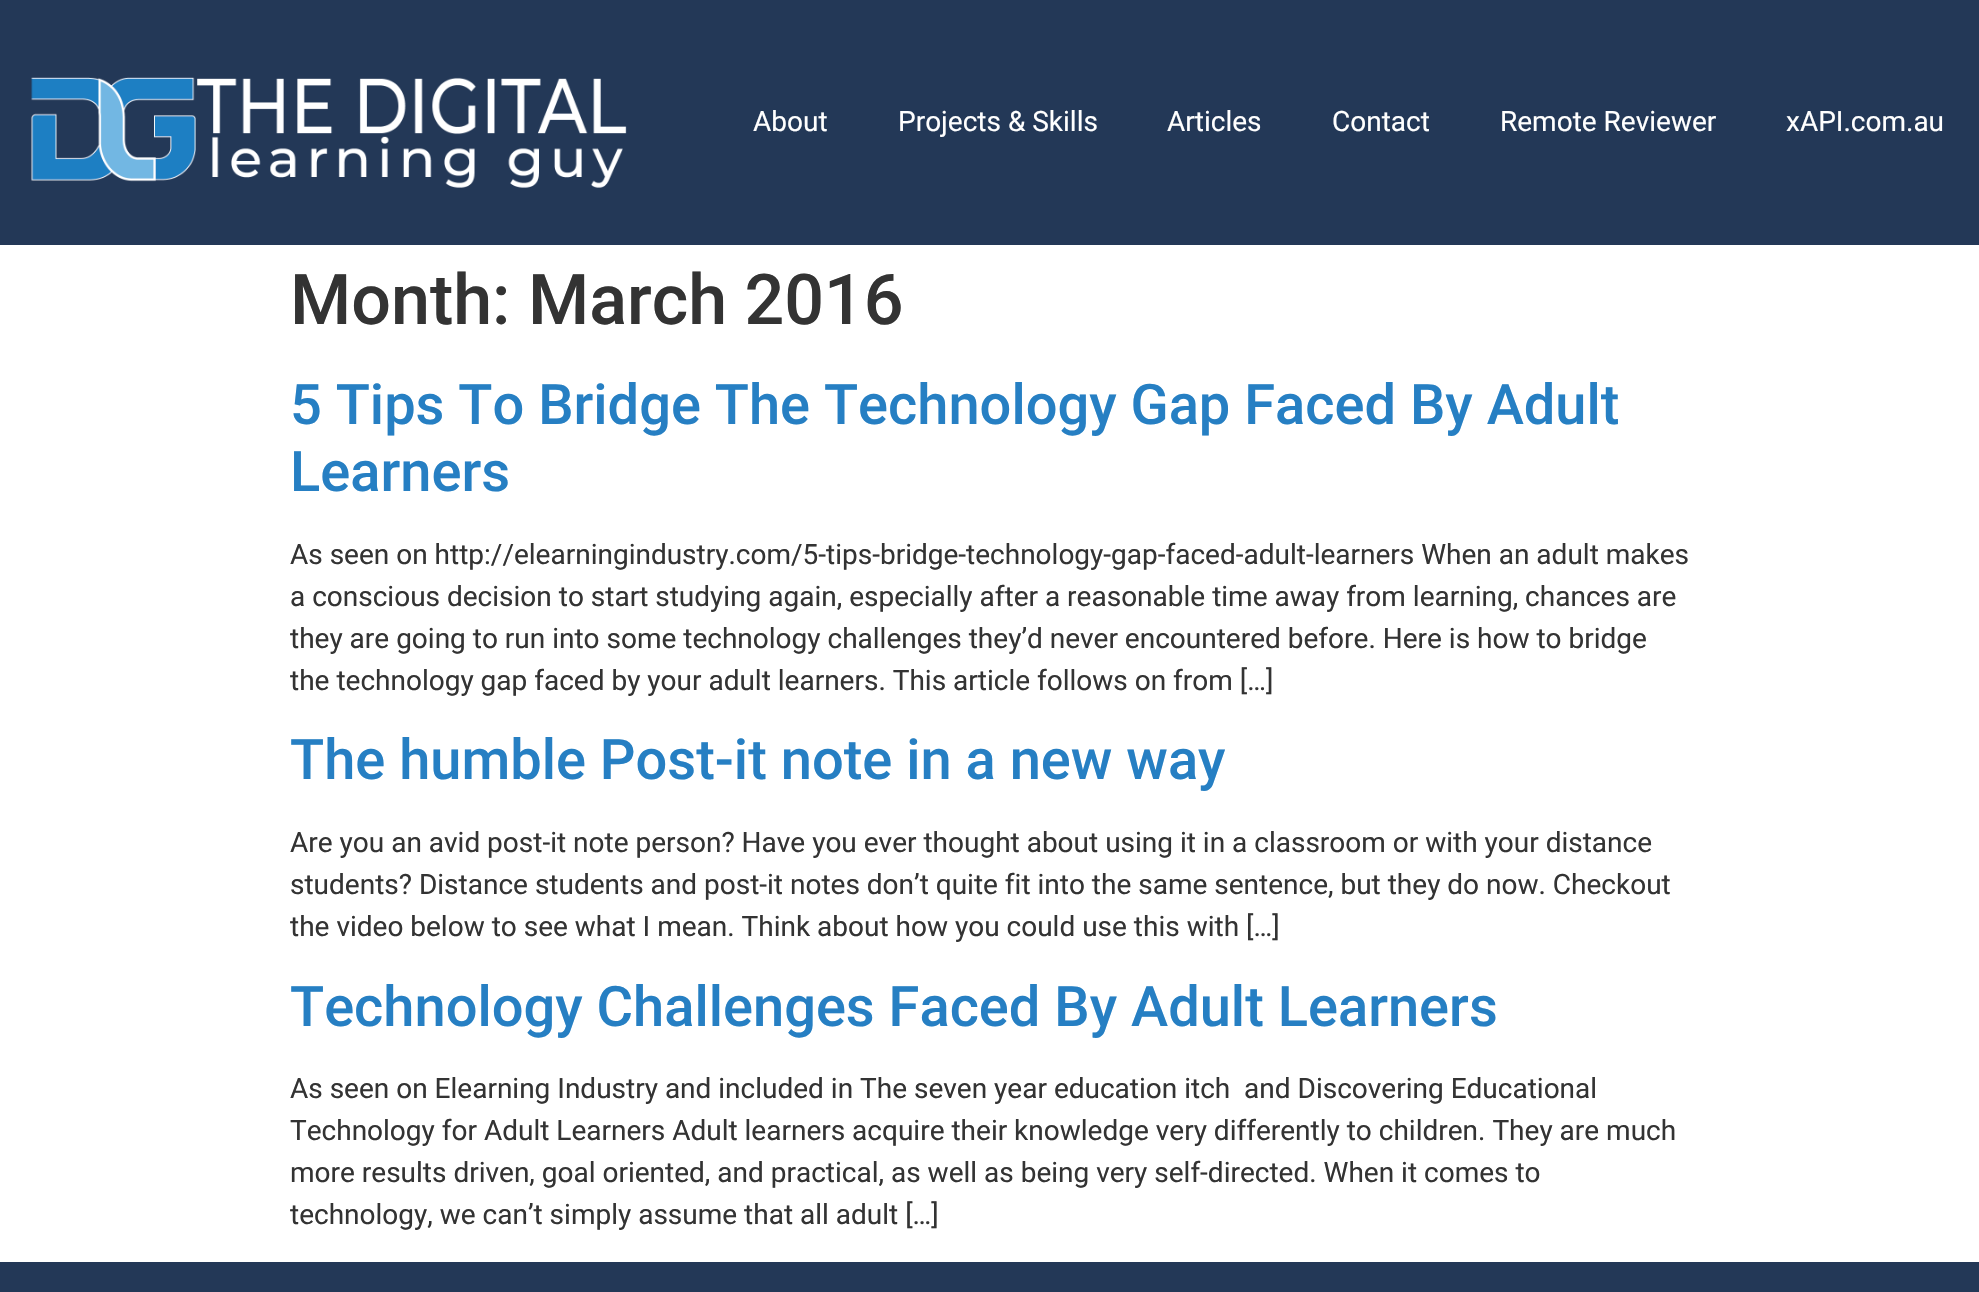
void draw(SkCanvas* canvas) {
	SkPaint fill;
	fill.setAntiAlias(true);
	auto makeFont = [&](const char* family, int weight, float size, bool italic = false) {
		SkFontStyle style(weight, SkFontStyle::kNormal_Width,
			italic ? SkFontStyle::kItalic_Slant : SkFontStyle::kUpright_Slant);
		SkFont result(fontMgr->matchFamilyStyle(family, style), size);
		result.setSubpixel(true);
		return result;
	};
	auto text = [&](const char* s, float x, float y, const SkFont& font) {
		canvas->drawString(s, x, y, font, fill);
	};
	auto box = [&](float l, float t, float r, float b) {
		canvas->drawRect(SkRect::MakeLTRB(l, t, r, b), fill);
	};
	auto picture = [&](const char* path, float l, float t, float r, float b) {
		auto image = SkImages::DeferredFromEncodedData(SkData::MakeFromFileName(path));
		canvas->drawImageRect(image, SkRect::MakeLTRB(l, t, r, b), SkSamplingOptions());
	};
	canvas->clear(0xFFFFFFFF);
	fill.setColor(0xFF233857);
	box(0, 0, 1979, 245);
	picture("image0.png", 31, 77, 627, 188);
	box(0, 1262, 1979, 1292);
	auto font1 = makeFont("Roboto", 400, 28);
	fill.setColor(0xFFFFFFFF);
	text("About", 753, 131, font1);
	text("Projects & Skills", 898, 131, font1);
	text("Articles", 1167, 131, font1);
	text("Contact", 1332, 131, font1);
	text("Remote Reviewer", 1500, 131, font1);
	text("xAPI.com.au", 1786, 131, font1);
	auto font2 = makeFont("Roboto", 500, 70);
	fill.setColor(0xFF333333);
	text("Month: March 2016", 290, 324, font2);
	auto font3 = makeFont("Roboto", 500, 56);
	fill.setColor(0xFF267FC3);
	text("5 Tips To Bridge The Technology Gap Faced By Adult", 290, 424, font3);
	text("Learners", 290, 491, font3);
	fill.setColor(0xFF333333);
	text("As seen on http://elearningindustry.com/5-tips-bridge-technology-gap-faced-adult-learners When an adult makes", 290, 564, font1);
	text("a conscious decision to start studying again, especially after a reasonable time away from learning, chances are", 290, 606, font1);
	text("they are going to run into some technology challenges they’d never encountered before. Here is how to bridge", 290, 648, font1);
	text("the technology gap faced by your adult learners. This article follows on from […]", 290, 690, font1);
	fill.setColor(0xFF267FC3);
	text("The humble Post-it note in a new way", 290, 779, font3);
	fill.setColor(0xFF333333);
	text("Are you an avid post-it note person? Have you ever thought about using it in a classroom or with your distance", 290, 852, font1);
	text("students? Distance students and post-it notes don’t quite fit into the same sentence, but they do now. Checkout", 290, 894, font1);
	text("the video below to see what I mean. Think about how you could use this with […]", 290, 936, font1);
	fill.setColor(0xFF267FC3);
	text("Technology Challenges Faced By Adult Learners", 290, 1026, font3);
	fill.setColor(0xFF333333);
	text("As seen on Elearning Industry and included in The seven year education itch  and Discovering Educational", 290, 1098, font1);
	text("Technology for Adult Learners Adult learners acquire their knowledge very differently to children. They are much", 290, 1140, font1);
	text("more results driven, goal oriented, and practical, as well as being very self-directed. When it comes to", 290, 1182, font1);
	text("technology, we can’t simply assume that all adult […]", 290, 1224, font1);
}
